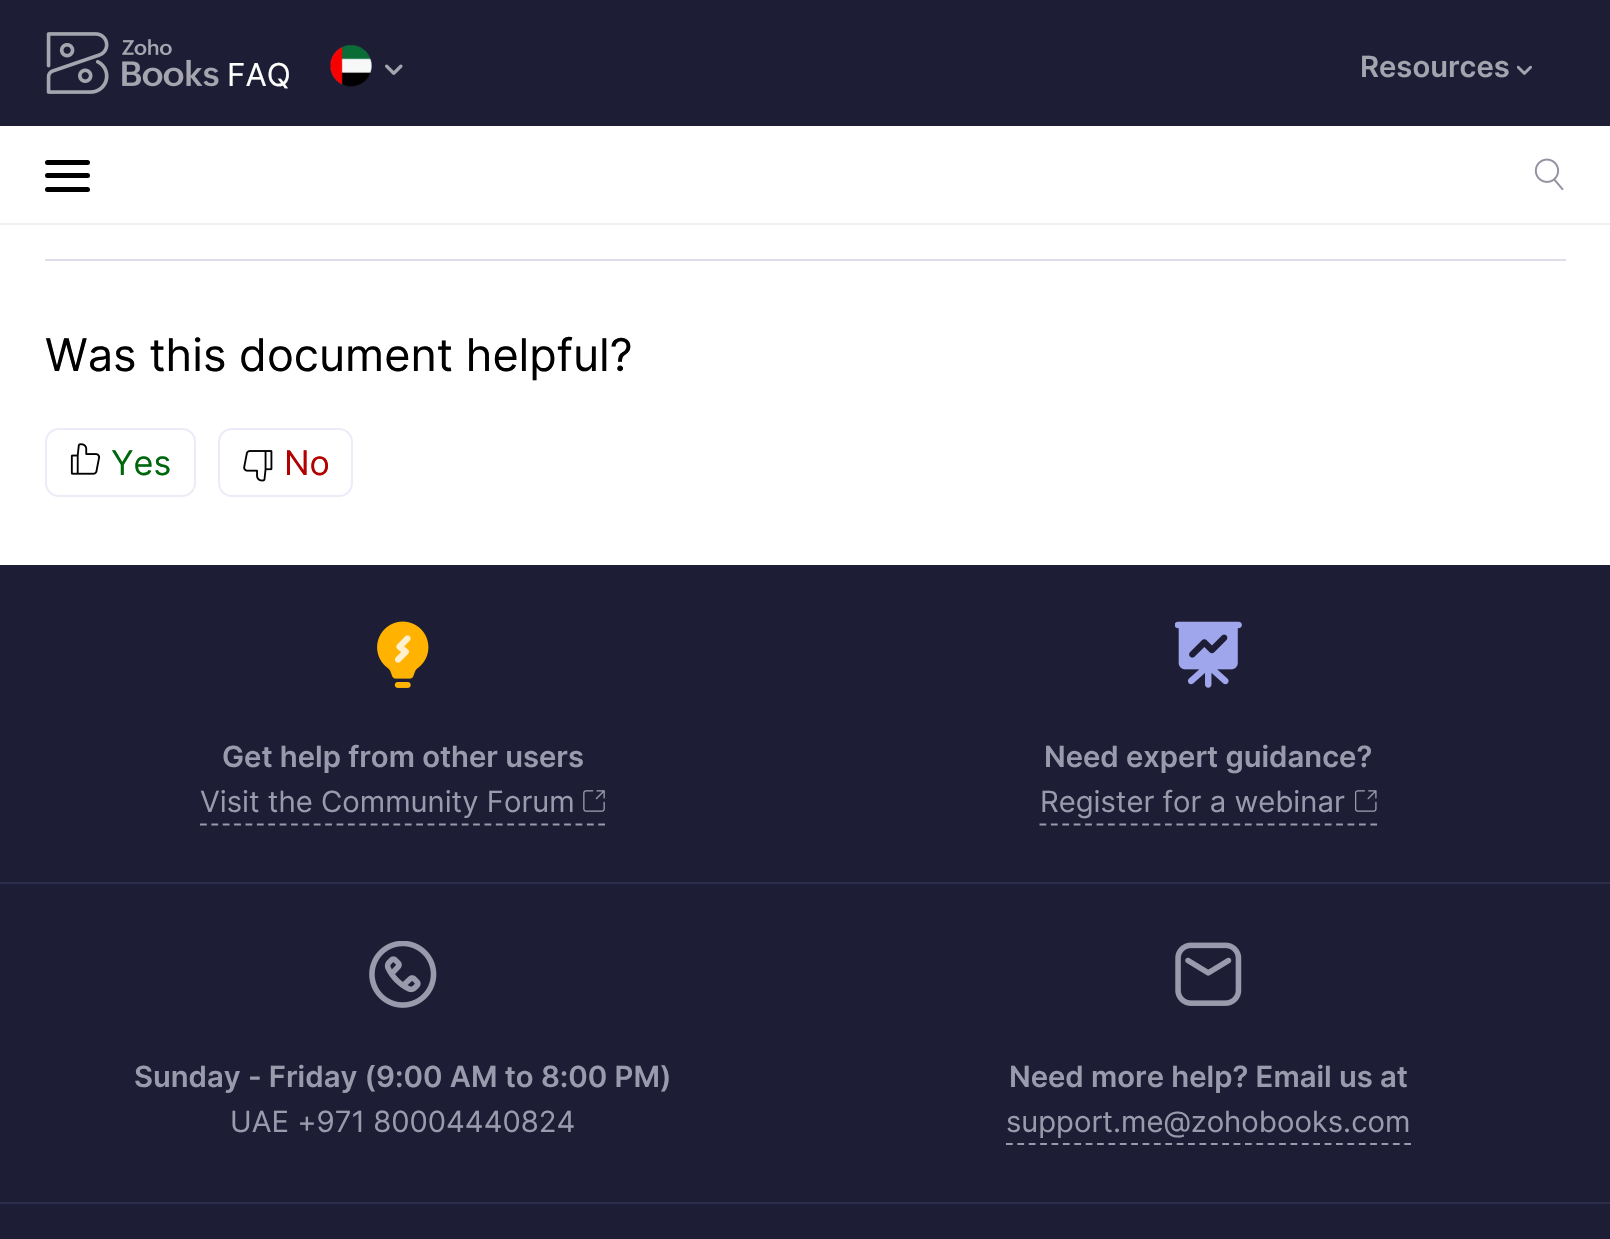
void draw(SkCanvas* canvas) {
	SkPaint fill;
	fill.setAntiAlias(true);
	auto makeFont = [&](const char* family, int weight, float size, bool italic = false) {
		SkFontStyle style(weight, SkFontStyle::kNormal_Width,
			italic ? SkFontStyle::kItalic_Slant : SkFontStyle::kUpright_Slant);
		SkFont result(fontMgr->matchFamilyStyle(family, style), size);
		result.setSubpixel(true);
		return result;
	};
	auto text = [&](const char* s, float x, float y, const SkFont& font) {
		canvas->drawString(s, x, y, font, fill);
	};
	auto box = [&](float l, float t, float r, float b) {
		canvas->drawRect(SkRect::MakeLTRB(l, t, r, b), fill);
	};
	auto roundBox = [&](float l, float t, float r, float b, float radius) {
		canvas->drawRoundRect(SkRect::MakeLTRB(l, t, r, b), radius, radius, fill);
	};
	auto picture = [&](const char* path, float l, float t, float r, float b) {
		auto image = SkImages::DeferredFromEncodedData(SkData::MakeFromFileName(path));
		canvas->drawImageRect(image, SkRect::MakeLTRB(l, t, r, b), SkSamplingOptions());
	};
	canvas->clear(0xFFFFFFFF);
	fill.setColor(0xFF1D1D35);
	box(0, 0, 1610, 126);
	picture("image0.png", 46, 32, 219, 94);
	picture("image1.png", 330, 45, 372, 87);
	picture("image2.png", 385, 64, 403, 75);
	picture("image3.png", 1517, 65, 1532, 75);
	fill.setColor(0xFFEFEFEF);
	box(0, 223, 1610, 225);
	fill.setColor(0xFF000000);
	roundBox(45, 160, 90, 165, 2.5f);
	roundBox(45, 173, 90, 178, 2.5f);
	roundBox(45, 187, 90, 192, 2.5f);
	picture("image4.png", 1534, 158, 1564, 191);
	fill.setColor(0xFFDFDFEC);
	box(45, 259, 1566, 261);
	fill.setStyle(SkPaint::kStroke_Style);
	fill.setStrokeWidth(2);
	fill.setColor(0xFFECECF9);
	canvas->drawRoundRect(SkRect::MakeLTRB(46, 429, 195, 496), 13, 13, fill);
	picture("image5.png", 70, 443, 101, 475);
	canvas->drawRoundRect(SkRect::MakeLTRB(219, 429, 352, 496), 13, 13, fill);
	picture("image6.png", 243, 450, 273, 482);
	fill.setStyle(SkPaint::kFill_Style);
	fill.setColor(0xFF1D1D35);
	box(0, 565, 1610, 1239);
	fill.setColor(0xFF2C2C4B);
	box(0, 882, 1610, 884);
	picture("image7.png", 377, 621, 429, 688);
	fill.setStyle(SkPaint::kStroke_Style);
	fill.setStrokeWidth(2.2f);
	fill.setColor(0xFF999AAC);
	fill.setPathEffect(SkDashPathEffect::Make({{6.75f, 4.63f}}, 0));
	canvas->drawPath(SkPathBuilder().moveTo(200, 824.5f).lineTo(605, 824.5f).detach(), fill);
	fill.setPathEffect(nullptr);
	picture("image8.png", 583, 790, 605, 812);
	picture("image9.png", 1175, 621, 1242, 688);
	fill.setPathEffect(SkDashPathEffect::Make({{6.75f, 4.66f}}, 0));
	canvas->drawPath(SkPathBuilder().moveTo(1039.5f, 824.5f).lineTo(1377, 824.5f).detach(), fill);
	fill.setPathEffect(nullptr);
	picture("image10.png", 1355, 790, 1377, 812);
	fill.setStyle(SkPaint::kFill_Style);
	fill.setColor(0xFF2C2C4B);
	box(0, 1202, 1610, 1204);
	picture("image11.png", 369, 941, 437, 1008);
	picture("image12.png", 1175, 942, 1242, 1006);
	fill.setStyle(SkPaint::kStroke_Style);
	fill.setColor(0xFF999AAC);
	fill.setPathEffect(SkDashPathEffect::Make({{6.75f, 4.63f}}, 0));
	canvas->drawPath(SkPathBuilder().moveTo(1006, 1144).lineTo(1411, 1144).detach(), fill);
	fill.setPathEffect(nullptr);
	auto font1 = makeFont("Inter", 400, 31.5f);
	fill.setStyle(SkPaint::kFill_Style);
	fill.setColor(0xFFFFFFFF);
	text("FAQ", 227, 86, font1);
	auto font2 = makeFont("Inter", 600, 29.25f);
	fill.setColor(0xFFA4A4AF);
	text("Resources", 1360, 77, font2);
	auto font3 = makeFont("Inter", 400, 45);
	fill.setColor(0xFF000000);
	text("Was this document helpful?", 45, 371, font3);
	auto font4 = makeFont("Inter", 400, 34);
	fill.setColor(0xFF00660C);
	text("Yes", 111, 475, font4);
	fill.setColor(0xFFB30000);
	text("No", 284, 475, font4);
	fill.setColor(0xFF999AAC);
	text("Get help from other users", 222, 767, font2);
	auto font5 = makeFont("Inter", 400, 29.25f);
	text("Visit the Community Forum", 200, 812, font5);
	text("Need expert guidance?", 1044, 767, font2);
	text("Register for a webinar", 1040, 812, font5);
	text("Sunday - Friday (9:00 AM to 8:00 PM)", 134, 1087, font2);
	text("UAE +971 80004440824", 230, 1132, font5);
	text("Need more help? Email us at", 1009, 1087, font2);
	text("support.me@zohobooks.com", 1006, 1132, font5);
}
